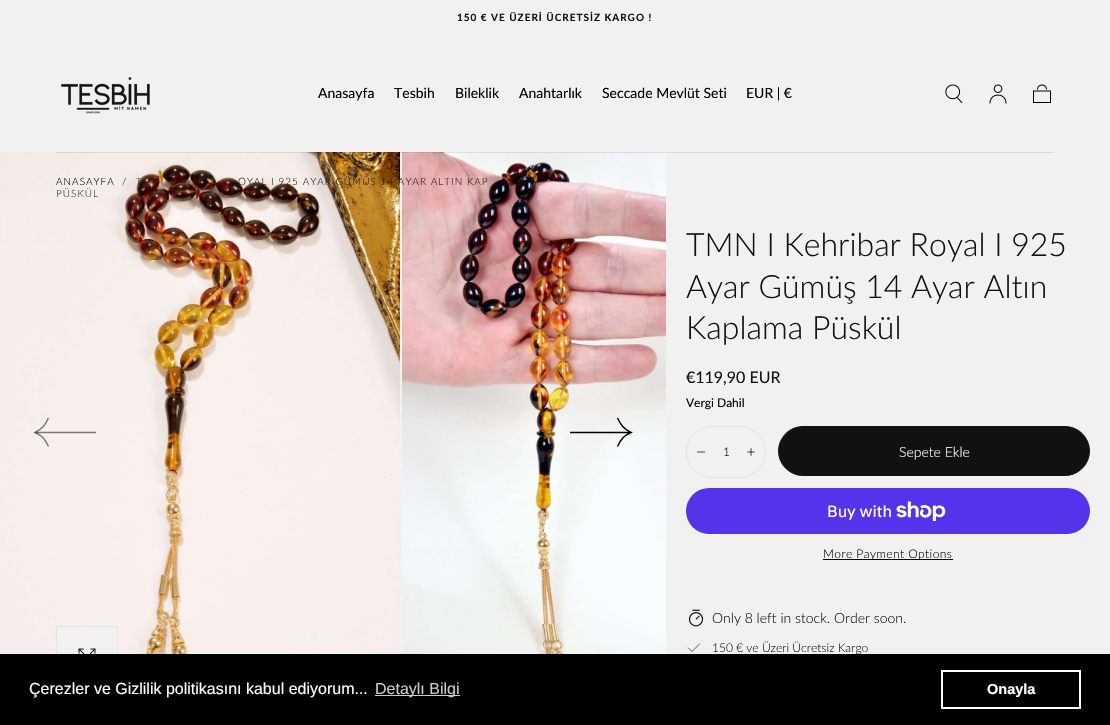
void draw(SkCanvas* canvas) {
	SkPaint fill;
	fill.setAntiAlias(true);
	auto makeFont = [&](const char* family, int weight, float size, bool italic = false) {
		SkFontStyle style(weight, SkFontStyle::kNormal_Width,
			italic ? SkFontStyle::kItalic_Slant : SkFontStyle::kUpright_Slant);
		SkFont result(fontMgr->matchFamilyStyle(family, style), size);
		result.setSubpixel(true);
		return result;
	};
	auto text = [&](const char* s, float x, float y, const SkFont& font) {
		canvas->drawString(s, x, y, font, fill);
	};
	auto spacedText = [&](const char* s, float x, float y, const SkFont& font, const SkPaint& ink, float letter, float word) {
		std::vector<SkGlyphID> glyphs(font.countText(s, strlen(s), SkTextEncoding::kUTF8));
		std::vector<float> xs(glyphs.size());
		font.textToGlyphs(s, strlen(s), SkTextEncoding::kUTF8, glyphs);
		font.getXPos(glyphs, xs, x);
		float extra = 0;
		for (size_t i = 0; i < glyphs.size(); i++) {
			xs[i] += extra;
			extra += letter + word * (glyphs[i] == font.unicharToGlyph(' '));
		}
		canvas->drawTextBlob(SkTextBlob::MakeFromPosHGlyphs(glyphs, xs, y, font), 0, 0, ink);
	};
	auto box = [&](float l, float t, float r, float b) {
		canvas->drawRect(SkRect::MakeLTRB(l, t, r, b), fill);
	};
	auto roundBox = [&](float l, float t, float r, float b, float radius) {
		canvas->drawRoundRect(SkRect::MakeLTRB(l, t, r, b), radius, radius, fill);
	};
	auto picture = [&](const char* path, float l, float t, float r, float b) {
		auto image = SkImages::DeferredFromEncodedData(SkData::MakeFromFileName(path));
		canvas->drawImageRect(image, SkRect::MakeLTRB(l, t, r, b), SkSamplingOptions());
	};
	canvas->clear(0xFFF1F1F1);
	picture("image0.png", 61, 77, 150, 114);
	picture("image1.png", 945, 84, 963, 104);
	picture("image2.png", 989, 84, 1007, 104);
	picture("image3.png", 1033, 84, 1051, 103);
	picture("image4.png", 0, 152, 400, 654);
	picture("image5.png", 402, 152, 666, 654);
	fill.setColor(0x1A111111);
	box(56, 152, 1054, 153);
	fill.setStyle(SkPaint::kStroke_Style);
	fill.setStrokeWidth(1);
	fill.setColor(0x0D000000);
	canvas->drawRect(SkRect::MakeLTRB(56.5f, 626.5f, 117.5f, 687.5f), fill);
	fill.setStyle(SkPaint::kFill_Style);
	fill.setColor(0xFFF1F1F1);
	box(57, 627, 117, 654);
	picture("image6.png", 78, 648, 96, 654);
	fill.setStyle(SkPaint::kStroke_Style);
	fill.setStrokeWidth(1.5f);
	fill.setColor(0x80000000);
	canvas->drawPath(SkPathBuilder().moveTo(96, 432.5f).lineTo(35.5f, 432.5f).detach(), fill);
	canvas->drawPath(SkPathBuilder().moveTo(48.5f, 446.5f).cubicTo(45, 439, 42, 435.5f, 35, 432.5f).cubicTo(42, 429, 45, 425.5f, 48.5f, 418).detach(), fill);
	fill.setColor(0xFF000000);
	canvas->drawPath(SkPathBuilder().moveTo(570, 432.5f).lineTo(630.5f, 432.5f).moveTo(617.5f, 446.5f).cubicTo(621, 439, 624, 435.5f, 631, 432.5f).cubicTo(624, 429, 621, 425.5f, 617.5f, 418).detach(), fill);
	fill.setStrokeWidth(1);
	fill.setColor(0xFFE6E2E1);
	canvas->drawRoundRect(SkRect::MakeLTRB(686.5f, 426.5f, 765.5f, 477.5f), 25.5f, 25.5f, fill);
	fill.setStrokeWidth(0.8f);
	fill.setStrokeCap(SkPaint::kSquare_Cap);
	fill.setColor(0xFF111111);
	canvas->drawPath(SkPathBuilder().moveTo(697.5f, 452).lineTo(704.5f, 452).detach(), fill);
	picture("image7.png", 747, 448, 755, 456);
	fill.setStyle(SkPaint::kFill_Style);
	canvas->drawRoundRect(SkRect::MakeLTRB(778.5f, 426.5f, 1089.5f, 475.5f), 24.5f, 24.5f, fill);
	fill.setStyle(SkPaint::kStroke_Style);
	fill.setStrokeWidth(1);
	fill.setStrokeCap(SkPaint::kButt_Cap);
	canvas->drawRoundRect(SkRect::MakeLTRB(778.5f, 426.5f, 1089.5f, 475.5f), 24.5f, 24.5f, fill);
	fill.setStyle(SkPaint::kFill_Style);
	fill.setColor(0xFF5433EB);
	roundBox(686, 488, 1090, 534, 23);
	picture("image8.png", 896, 501, 946, 521);
	fill.setColor(0xFF000000);
	box(823, 559, 953, 560);
	picture("image9.png", 688, 609, 704, 627);
	fill.setStyle(SkPaint::kStroke_Style);
	fill.setStrokeWidth(0.7f);
	fill.setStrokeCap(SkPaint::kSquare_Cap);
	fill.setColor(0xFF111111);
	canvas->drawPath(SkPathBuilder().moveTo(699.5f, 644).lineTo(692, 651.5f).lineTo(688.5f, 648).detach(), fill);
	auto font1 = makeFont("Lato", 700, 10);
	fill.setStyle(SkPaint::kFill_Style);
	spacedText("150 € VE ÜZERİ ÜCRETSİZ KARGO !", 457, 21, font1, fill, 1, 0);
	auto font2 = makeFont("Lato", 400, 14);
	fill.setColor(0xFF000000);
	text("Anasayfa", 318, 98, font2);
	text("Tesbih", 394, 98, font2);
	text("Bileklik", 455, 98, font2);
	text("Anahtarlık", 519, 98, font2);
	text("Seccade Mevlüt Seti", 602, 98, font2);
	text("EUR | €", 746, 98, font2);
	auto font3 = makeFont("Lato", 300, 10);
	spacedText("ANASAYFA", 56, 185, font3, fill, 1, 0);
	spacedText("/", 122, 185, font3, fill, 1, 0);
	fill.setColor(0xFF221A16);
	spacedText("T", 136, 185, font3, fill, 1, 0);
	spacedText("OYAL I 925 AYAR GÜMÜŞ 14 AYAR ALTIN KAP", 238, 185, font3, fill, 1, 0);
	fill.setColor(0xFF312F2F);
	spacedText("PÜSKÜL", 56, 197, font3, fill, 1, 0);
	auto font4 = makeFont("Lato", 300, 32);
	fill.setColor(0xFF111111);
	text("TMN I Kehribar Royal I 925", 686, 256, font4);
	text("Ayar Gümüş 14 Ayar Altın", 686, 298, font4);
	text("Kaplama Püskül", 686, 339, font4);
	auto font5 = makeFont("Lato", 400, 16);
	text("€119,90 EUR", 686, 383, font5);
	auto font6 = makeFont("Lato", 400, 12);
	fill.setColor(0xFF000000);
	text("Vergi Dahil", 686, 407, font6);
	auto font7 = makeFont("Lato", 300, 12);
	text("1", 723, 456, font7);
	auto font8 = makeFont("Lato", 300, 14);
	fill.setColor(0xFFFFFFFF);
	text("Sepete Ekle", 899, 457, font8);
	auto font9 = makeFont("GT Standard", 400, 16);
	text("Buy with", 827, 517, font9);
	fill.setColor(0xFF000000);
	spacedText("More Payment Options", 823, 558, font7, fill, 0.4f, 0);
	fill.setColor(0xFF111111);
	text("Only 8 left in stock. Order soon.", 712, 623, font8);
	text("150 € ve Üzeri Ücretsiz Kargo", 712, 652, font7);
	fill.setColor(0xFF000000);
	box(0, 654, 1110, 725);
	auto font10 = makeFont("Liberation Sans", 400, 16);
	fill.setColor(0xFFFFFFFF);
	text("Çerezler ve Gizlilik politikasını kabul ediyorum...", 29, 694, font10);
	fill.setColor(0xFFCCCCCC);
	box(375, 695, 460, 696);
	text("Detaylı Bilgi", 375, 694, font10);
	fill.setStyle(SkPaint::kStroke_Style);
	fill.setStrokeWidth(2);
	fill.setStrokeCap(SkPaint::kButt_Cap);
	fill.setColor(0xFFFFFFFF);
	canvas->drawRect(SkRect::MakeLTRB(942, 671, 1080, 708), fill);
	auto font11 = makeFont("Liberation Sans", 700, 14.5f);
	fill.setStyle(SkPaint::kFill_Style);
	text("Onayla", 987, 694, font11);
}
